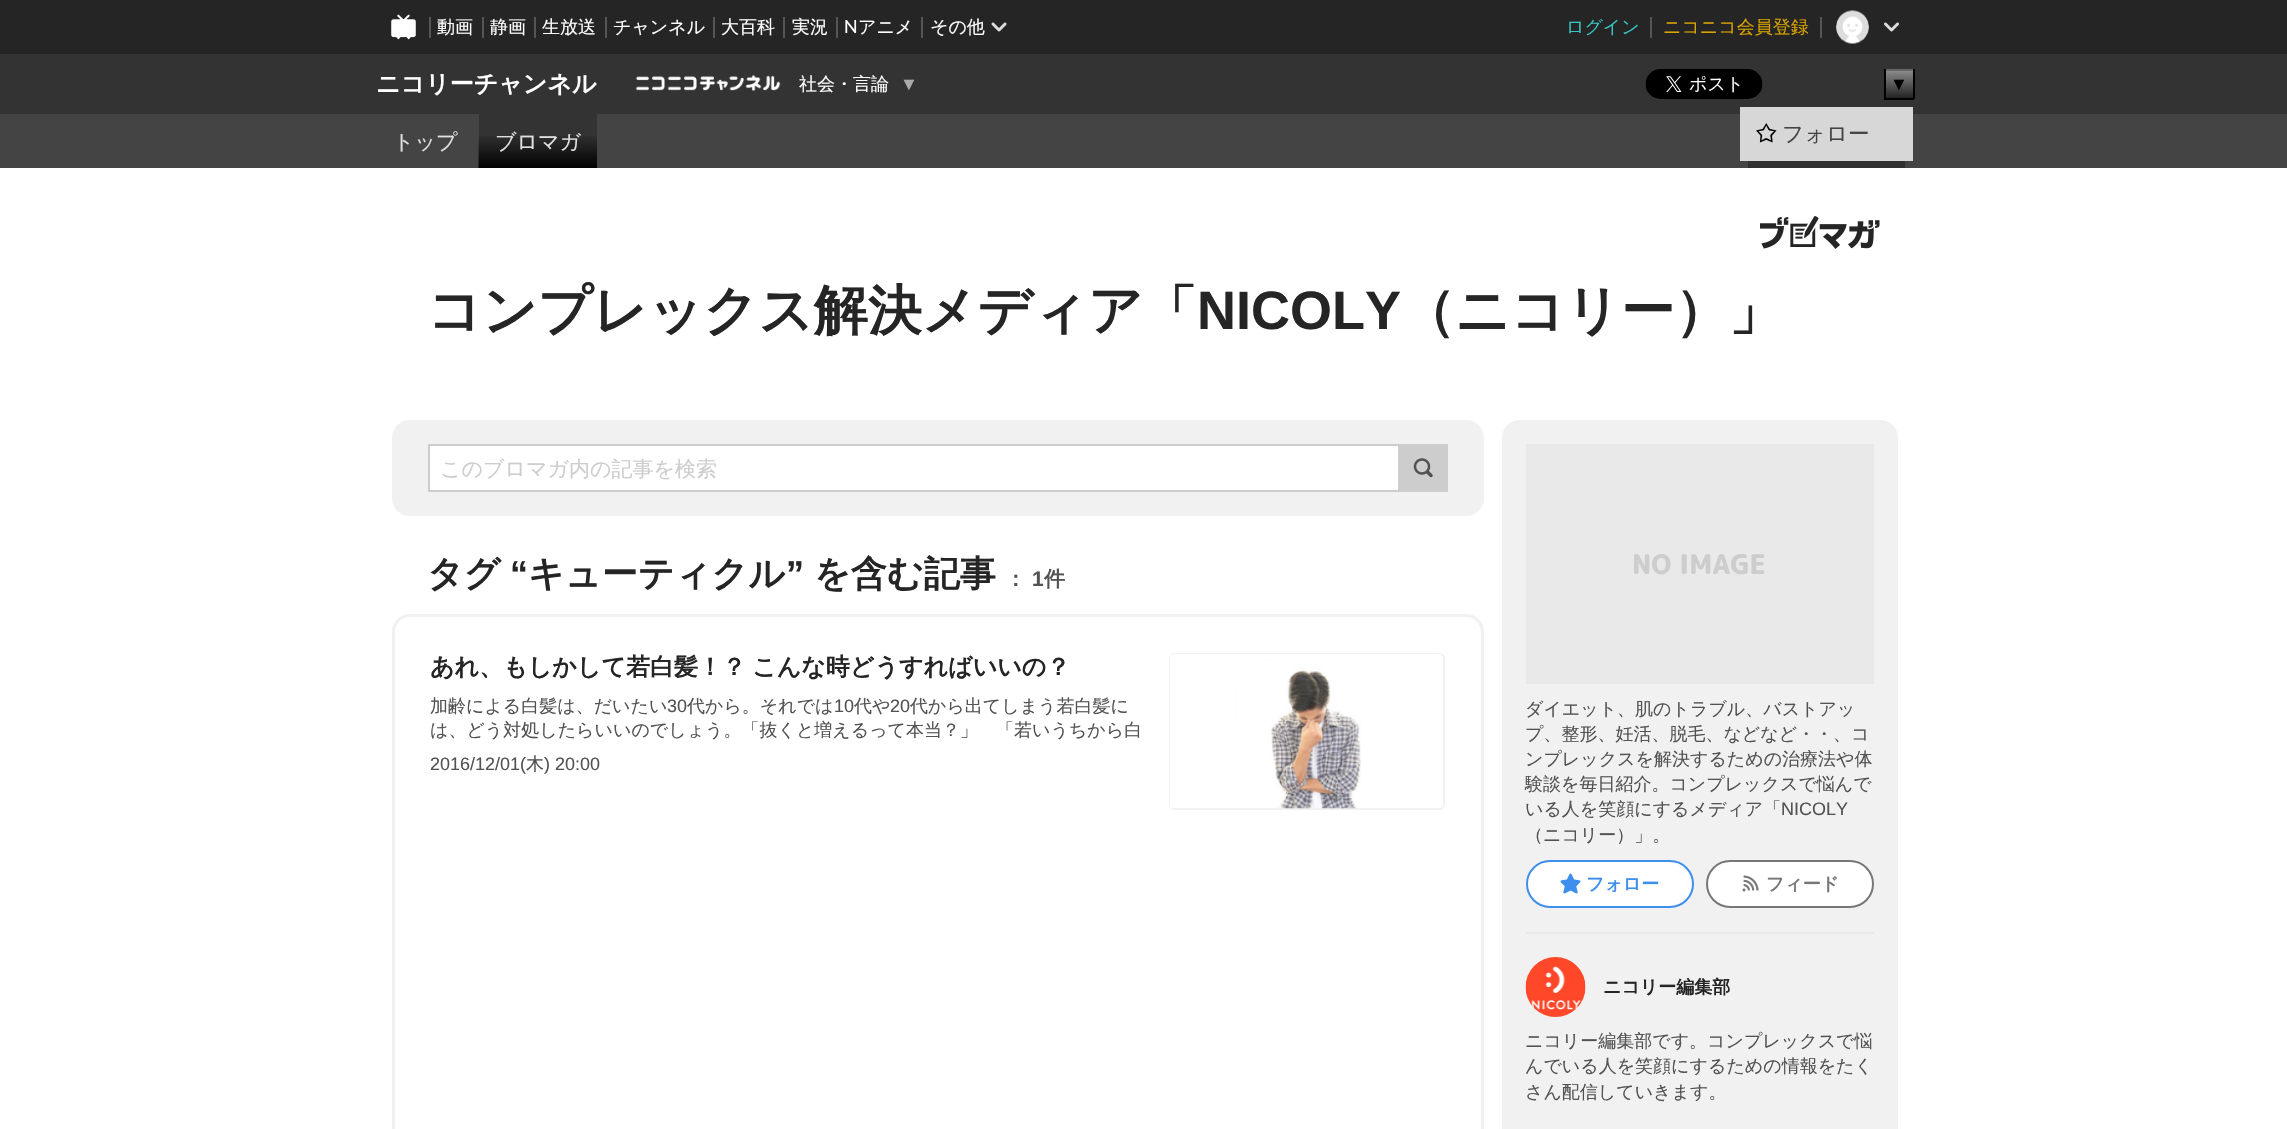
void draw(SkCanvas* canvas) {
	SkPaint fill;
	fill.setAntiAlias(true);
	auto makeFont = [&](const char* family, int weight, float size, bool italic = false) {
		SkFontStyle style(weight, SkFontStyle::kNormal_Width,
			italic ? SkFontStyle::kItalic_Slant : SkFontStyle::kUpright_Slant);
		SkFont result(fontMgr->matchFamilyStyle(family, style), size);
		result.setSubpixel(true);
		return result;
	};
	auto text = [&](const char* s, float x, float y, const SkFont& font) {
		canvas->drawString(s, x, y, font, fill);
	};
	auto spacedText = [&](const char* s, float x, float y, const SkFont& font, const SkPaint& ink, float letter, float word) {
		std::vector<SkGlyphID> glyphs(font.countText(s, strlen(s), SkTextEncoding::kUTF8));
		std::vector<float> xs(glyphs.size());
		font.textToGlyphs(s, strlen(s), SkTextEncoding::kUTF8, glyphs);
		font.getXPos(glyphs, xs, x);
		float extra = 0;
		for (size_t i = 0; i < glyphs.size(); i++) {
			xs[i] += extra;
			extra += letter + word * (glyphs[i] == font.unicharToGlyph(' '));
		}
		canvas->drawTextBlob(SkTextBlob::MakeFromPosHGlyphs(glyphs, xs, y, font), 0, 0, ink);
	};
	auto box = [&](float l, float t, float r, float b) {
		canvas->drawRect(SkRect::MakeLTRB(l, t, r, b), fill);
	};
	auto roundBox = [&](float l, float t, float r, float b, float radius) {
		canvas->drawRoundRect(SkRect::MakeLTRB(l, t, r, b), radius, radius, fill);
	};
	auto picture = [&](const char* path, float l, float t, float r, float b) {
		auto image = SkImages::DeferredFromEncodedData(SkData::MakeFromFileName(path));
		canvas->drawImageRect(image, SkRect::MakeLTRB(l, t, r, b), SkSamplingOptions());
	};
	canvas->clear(0xFFFFFFFF);
	fill.setColor(0xFF252525);
	box(0, 0, 2287, 54);
	picture("image0.png", 391, 14, 416, 40);
	fill.setColor(0xFF555555);
	box(429, 17, 431, 38);
	box(482, 17, 484, 38);
	box(534, 17, 536, 38);
	box(605, 17, 607, 38);
	box(713, 17, 715, 38);
	box(783, 17, 785, 38);
	box(836, 17, 838, 38);
	box(921, 17, 923, 38);
	picture("image1.png", 991, 22, 1007, 32);
	box(1650, 17, 1652, 38);
	box(1820, 17, 1822, 38);
	picture("image2.png", 1836, 10, 1869, 44);
	picture("image3.png", 1884, 22, 1899, 32);
	fill.setColor(0xFF333333);
	box(0, 54, 2287, 114);
	picture("image4.png", 635, 75, 781, 91);
	picture("image5.png", 1645, 69, 1763, 99);
	fill.setColor(0xFF888888);
	box(1886, 71, 1913, 98);
	picture("image6.png", 1886, 72, 1913, 98);
	fill.setColor(0xFF666666);
	box(1884, 69, 1914, 71);
	fill.setColor(0xFF000000);
	box(1913, 69, 1915, 99);
	box(1884, 98, 1914, 100);
	box(1884, 69, 1886, 99);
	fill.setColor(0xFF444444);
	box(0, 114, 2287, 168);
	fill.setColor(0xFF333333);
	box(479, 114, 597, 168);
	picture("image7.png", 478, 136, 597, 168);
	fill.setColor(0xFF303030);
	box(1748, 161, 1905, 168);
	fill.setColor(0xFFD7D7D7);
	box(1740, 107, 1913, 161);
	picture("image8.png", 1756, 123, 1777, 143);
	picture("image9.png", 1760, 216, 1880, 249);
	fill.setColor(0xFFF1F1F1);
	roundBox(392, 420, 1484, 516, 18);
	fill.setColor(0xFFFFFFFF);
	canvas->drawRect(SkRect::MakeLTRB(429, 445, 1399, 491), fill);
	fill.setStyle(SkPaint::kStroke_Style);
	fill.setStrokeWidth(2);
	fill.setColor(0xFFCDCDCD);
	canvas->drawRect(SkRect::MakeLTRB(429, 445, 1399, 491), fill);
	fill.setStyle(SkPaint::kFill_Style);
	box(1400, 444, 1448, 492);
	picture("image10.png", 1413, 458, 1433, 478);
	fill.setStyle(SkPaint::kStroke_Style);
	fill.setStrokeWidth(3);
	fill.setColor(0xFFF1F1F1);
	canvas->drawRoundRect(SkRect::MakeLTRB(393.5f, 615.5f, 1482.5f, 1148.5f), 16.5f, 16.5f, fill);
	fill.setStrokeWidth(2);
	canvas->drawRoundRect(SkRect::MakeLTRB(1170, 654, 1444, 809), 5, 5, fill);
	picture("image11.png", 1170, 654, 1443, 809);
	fill.setStyle(SkPaint::kFill_Style);
	roundBox(1502, 420, 1898, 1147, 18);
	fill.setColor(0xFFE9E9E9);
	box(1526, 444, 1874, 684);
	fill.setColor(0xFFFFFFFF);
	canvas->drawRoundRect(SkRect::MakeLTRB(1527, 861, 1693, 907), 23, 23, fill);
	fill.setStyle(SkPaint::kStroke_Style);
	fill.setColor(0xFF3E8EED);
	canvas->drawRoundRect(SkRect::MakeLTRB(1527, 861, 1693, 907), 23, 23, fill);
	picture("image12.png", 1560, 873, 1581, 894);
	fill.setStyle(SkPaint::kFill_Style);
	fill.setColor(0xFFFFFFFF);
	canvas->drawRoundRect(SkRect::MakeLTRB(1707, 861, 1873, 907), 23, 23, fill);
	fill.setStyle(SkPaint::kStroke_Style);
	fill.setColor(0xFF777777);
	canvas->drawRoundRect(SkRect::MakeLTRB(1707, 861, 1873, 907), 23, 23, fill);
	picture("image13.png", 1742, 875, 1759, 892);
	fill.setStyle(SkPaint::kFill_Style);
	fill.setColor(0xFFE9E9E9);
	box(1526, 932, 1874, 934);
	picture("image14.png", 1525, 957, 1586, 1017);
	auto font1 = makeFont("WenQuanYi Zen Hei", 500, 18);
	fill.setColor(0xFFFFFFFF);
	text("動画", 437, 33, font1);
	text("静画", 490, 33, font1);
	text("生放送", 542, 33, font1);
	text("チャンネル", 613, 33, font1);
	text("大百科", 721, 33, font1);
	text("実況", 792, 33, font1);
	auto font2 = makeFont("Lato", 400, 18);
	text("N", 844, 33, font2);
	text("アニメ", 858, 33, font1);
	text("その他", 930, 33, font1);
	fill.setColor(0xFF39C4C1);
	text("ログイン", 1566, 33, font1);
	fill.setColor(0xFFD9A300);
	text("ニコニコ会員登録", 1663, 33, font1);
	auto font3 = makeFont("WenQuanYi Zen Hei", 700, 24);
	fill.setColor(0xFFFFFFFF);
	text("ニコリーチャンネル", 376, 92, font3);
	text("社会・言論", 799, 90, font1);
	auto font4 = makeFont("Liberation Sans", 400, 18);
	fill.setColor(0xFFAAAAAA);
	text("▼", 900, 90, font4);
	fill.setColor(0xFF000000);
	text("▼", 1890, 90, font4);
	auto font5 = makeFont("WenQuanYi Zen Hei", 500, 21);
	fill.setColor(0xFFE0E0E0);
	text("トップ", 393, 149, font5);
	text("ブロマガ", 495, 149, font5);
	auto font6 = makeFont("WenQuanYi Zen Hei", 500, 21.5f);
	fill.setColor(0xFF444444);
	text("フォロー", 1782, 141, font6);
	auto font7 = makeFont("WenQuanYi Zen Hei", 700, 54);
	fill.setColor(0xFF252525);
	text("コンプレックス解決メディア「", 427, 329, font7);
	auto font8 = makeFont("Liberation Sans", 700, 54);
	text("NICOLY", 1197, 329, font8);
	text("（ニコリー）」", 1401, 329, font7);
	fill.setColor(0xFFCDCDCD);
	text("このブロマガ内の記事を検索", 440, 476, font5);
	auto font9 = makeFont("WenQuanYi Zen Hei", 700, 36);
	fill.setColor(0xFF252525);
	text("タグ", 427, 586, font9);
	auto font10 = makeFont("Liberation Sans", 700, 36);
	text("“", 510, 586, font10);
	text("キューティクル", 528, 586, font9);
	text("”", 786, 586, font10);
	text("を含む記事", 814, 586, font9);
	auto font11 = makeFont("WenQuanYi Zen Hei", 700, 21);
	fill.setColor(0xFF525252);
	text("：", 1005, 586, font11);
	auto font12 = makeFont("Liberation Sans", 700, 21);
	text("1", 1032, 586, font12);
	text("件", 1044, 586, font11);
	fill.setColor(0xFF252525);
	spacedText("あれ、もしかして若白髪！？ こんな時どうすればいいの？", 430, 675, font3, fill, 0, -1);
	fill.setColor(0xFF525252);
	text("加齢による白髪は、だいたい", 430, 712, font1);
	text("30", 667, 712, font4);
	text("代から。それでは", 687, 712, font1);
	text("10", 834, 712, font4);
	text("代や", 854, 712, font1);
	text("20", 890, 712, font4);
	text("代から出てしまう若白髪に", 910, 712, font1);
	text("は、どう対処したらいいのでしょう。「抜くと増えるって本当？」　「若いうちから白", 430, 736, font1);
	text("2016/12/01(", 430, 770, font4);
	text("木", 526, 770, font1);
	text(") 20:00", 544, 770, font4);
	auto font13 = makeFont("Rounded Mplus 1c", 800, 27);
	fill.setColor(0xFFCDCDCD);
	text("NO IMAGE", 1632, 574, font13);
	fill.setColor(0xFF525252);
	text("ダイエット、肌のトラブル、バストアッ", 1525, 715, font1);
	text("プ、整形、妊活、脱毛、などなど・・、コ", 1525, 740, font1);
	text("ンプレックスを解決するための治療法や体", 1525, 765, font1);
	text("験談を毎日紹介。コンプレックスで悩んで", 1525, 790, font1);
	text("いる人を笑顔にするメディア「", 1525, 815, font1);
	text("NICOLY", 1781, 815, font4);
	text("（ニコリー）」。", 1525, 841, font1);
	auto font14 = makeFont("WenQuanYi Zen Hei", 700, 18);
	fill.setColor(0xFF3E8EED);
	text("フォロー", 1586, 890, font14);
	fill.setColor(0xFF777777);
	text("フィード", 1766, 890, font14);
	fill.setColor(0xFF252525);
	text("ニコリー編集部", 1603, 993, font14);
	fill.setColor(0xFF525252);
	text("ニコリー編集部です。コンプレックスで悩", 1525, 1047, font1);
	text("んでいる人を笑顔にするための情報をたく", 1525, 1072, font1);
	text("さん配信していきます。", 1525, 1098, font1);
}
